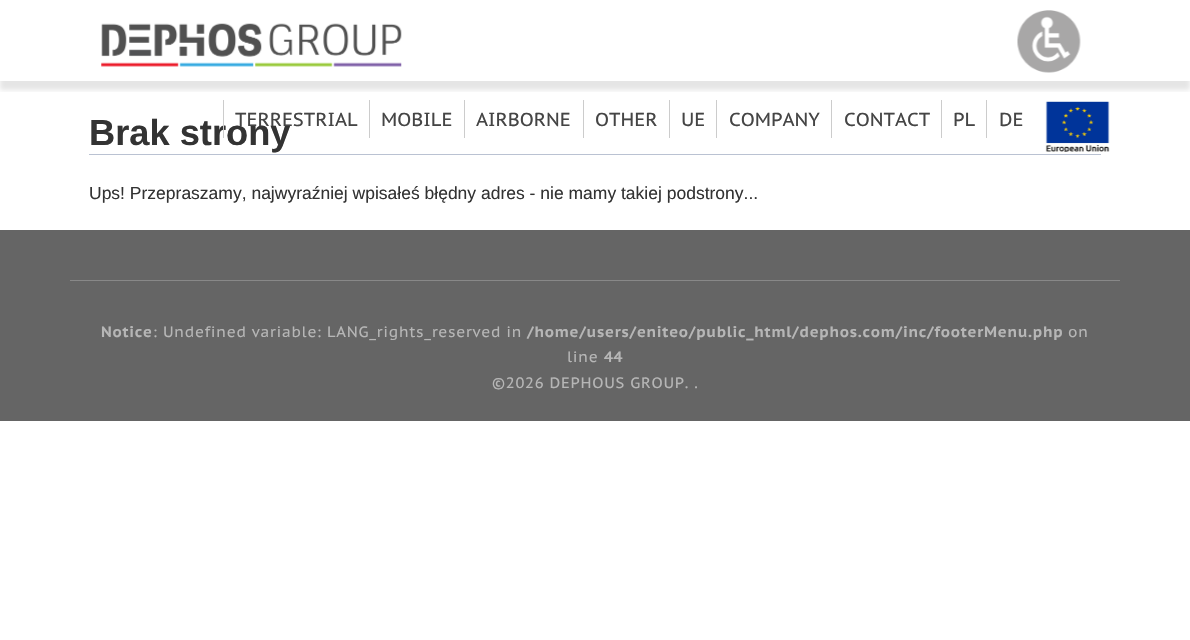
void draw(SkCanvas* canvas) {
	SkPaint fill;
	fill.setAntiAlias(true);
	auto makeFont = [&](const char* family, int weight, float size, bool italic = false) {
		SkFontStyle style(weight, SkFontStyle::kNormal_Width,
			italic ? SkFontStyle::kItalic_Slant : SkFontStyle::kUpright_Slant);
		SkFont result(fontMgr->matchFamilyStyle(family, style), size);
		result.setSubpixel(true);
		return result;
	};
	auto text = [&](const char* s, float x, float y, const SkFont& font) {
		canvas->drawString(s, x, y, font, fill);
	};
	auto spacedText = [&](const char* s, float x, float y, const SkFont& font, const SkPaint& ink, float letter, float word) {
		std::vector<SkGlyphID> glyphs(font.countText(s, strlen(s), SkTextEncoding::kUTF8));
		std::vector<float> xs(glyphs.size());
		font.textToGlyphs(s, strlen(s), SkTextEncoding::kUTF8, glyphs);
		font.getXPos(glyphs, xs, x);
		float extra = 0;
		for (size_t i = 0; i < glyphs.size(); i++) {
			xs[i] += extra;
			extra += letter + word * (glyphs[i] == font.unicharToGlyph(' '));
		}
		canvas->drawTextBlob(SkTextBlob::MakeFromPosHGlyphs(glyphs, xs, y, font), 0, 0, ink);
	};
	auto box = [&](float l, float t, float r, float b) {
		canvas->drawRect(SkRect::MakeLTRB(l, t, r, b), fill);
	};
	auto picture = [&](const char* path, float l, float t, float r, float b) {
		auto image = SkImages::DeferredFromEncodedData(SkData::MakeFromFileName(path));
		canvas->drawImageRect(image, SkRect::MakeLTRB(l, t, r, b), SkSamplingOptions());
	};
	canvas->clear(0xFFFFFFFF);
	canvas->save();
	canvas->clipRect(SkRect::MakeLTRB(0, 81, 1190, 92));
	fill.setColor(0x1A000000);
	fill.setMaskFilter(SkMaskFilter::MakeBlur(kNormal_SkBlurStyle, 2.5f));
	canvas->drawRect(SkRect::MakeLTRB(0, 9, 1190, 90), fill);
	fill.setMaskFilter(nullptr);
	canvas->restore();
	picture("image0.png", 1017, 10, 1081, 73);
	picture("image1.png", 101, 23, 402, 67);
	fill.setColor(0xFFCCCCCC);
	box(369, 100, 370, 138);
	box(464, 100, 465, 138);
	box(583, 100, 584, 138);
	box(669, 100, 670, 138);
	box(716, 100, 717, 138);
	box(831, 100, 832, 138);
	box(941, 100, 942, 138);
	box(986, 100, 987, 138);
	picture("image2.png", 1045, 101, 1110, 152);
	fill.setColor(0xFFBAC2D2);
	box(89, 154, 1101, 155);
	fill.setColor(0xFF656565);
	box(0, 230, 1190, 421);
	fill.setColor(0xFF888888);
	box(70, 280, 1120, 281);
	auto font1 = makeFont("PT Sans Caption", 400, 18.75f);
	fill.setColor(0xFF454545);
	text("MOBILE", 381, 126, font1);
	text("AIRBORNE", 476, 126, font1);
	text("OTHER", 595, 126, font1);
	text("UE", 681, 126, font1);
	text("COMPANY", 729, 126, font1);
	text("CONTACT", 844, 126, font1);
	text("PL", 953, 126, font1);
	text("DE", 999, 126, font1);
	auto font2 = makeFont("Liberation Sans", 700, 36.25f);
	fill.setColor(0xFF333333);
	text("Brak strony", 89, 145, font2);
	fill.setColor(0xFF454545);
	text("TERRESTRIAL", 235, 126, font1);
	fill.setColor(0xFFCCCCCC);
	box(223, 100, 224, 138);
	auto font3 = makeFont("Liberation Sans", 400, 17.5f);
	fill.setColor(0xFF333333);
	text("Ups! Przepraszamy, najwyraźniej wpisałeś błędny adres - nie mamy takiej podstrony...", 89, 199, font3);
	auto font4 = makeFont("PT Sans Caption", 700, 15);
	fill.setColor(0xFFB6B6B6);
	spacedText("Notice", 101, 337, font4, fill, 0.75f, 0);
	auto font5 = makeFont("PT Sans Caption", 400, 15);
	spacedText(": Undefined variable: LANG_rights_reserved in", 153, 337, font5, fill, 0.75f, 0);
	spacedText("/home/users/eniteo/public_html/dephos.com/inc/footerMenu.php", 527, 337, font4, fill, 0.75f, 0);
	spacedText("on", 1068, 337, font5, fill, 0.75f, 0);
	spacedText("line", 567, 362, font5, fill, 0.75f, 0);
	spacedText("44", 604, 362, font4, fill, 0.75f, 0);
	spacedText("©2026 DEPHOUS GROUP. .", 492, 388, font5, fill, 0.75f, 0);
}
